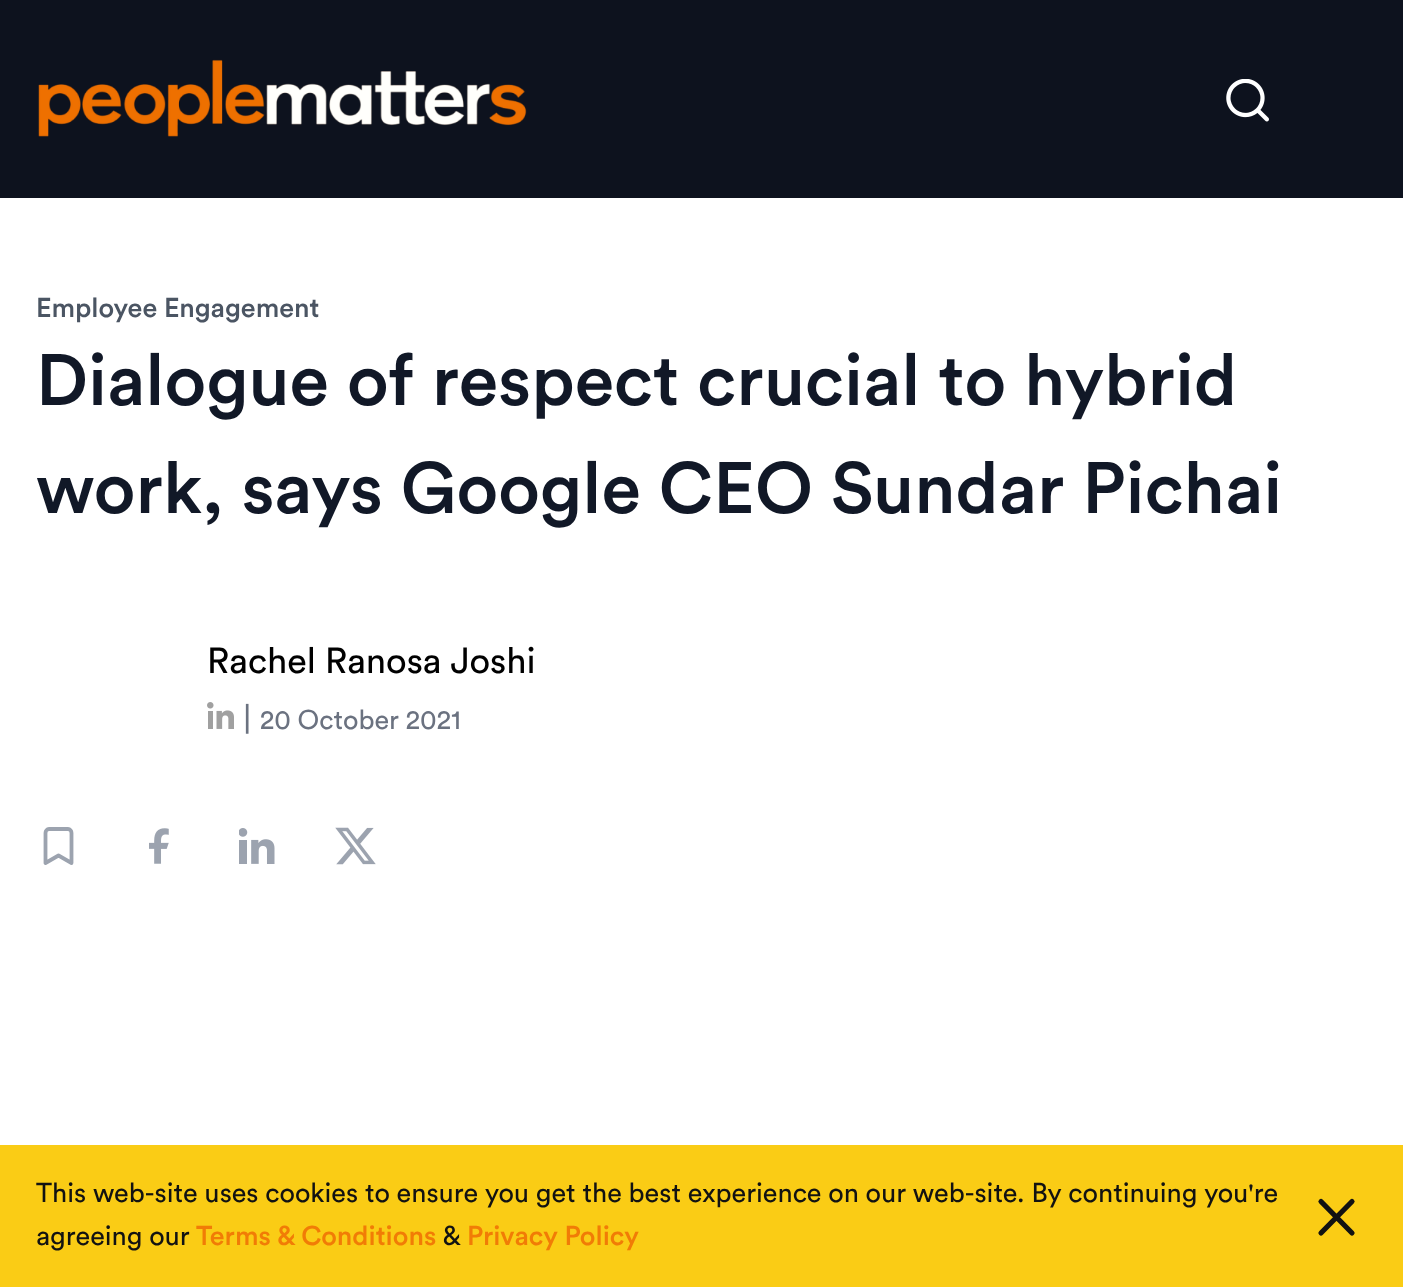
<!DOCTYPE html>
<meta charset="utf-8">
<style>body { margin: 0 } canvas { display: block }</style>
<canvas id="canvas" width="1403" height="1287"></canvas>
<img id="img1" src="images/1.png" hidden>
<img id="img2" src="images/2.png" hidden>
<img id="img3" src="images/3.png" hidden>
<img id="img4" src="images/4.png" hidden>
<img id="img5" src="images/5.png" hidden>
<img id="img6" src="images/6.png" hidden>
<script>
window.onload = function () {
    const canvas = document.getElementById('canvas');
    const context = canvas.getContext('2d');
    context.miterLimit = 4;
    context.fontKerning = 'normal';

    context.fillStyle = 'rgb(255, 255, 255)';
    context.fillRect(0, 0, 1403, 1287);
    context.fillStyle = 'rgb(13, 18, 30)';
    context.fillRect(0, 0, 1403, 198);
    context.drawImage(document.getElementById('img1'), 38, 59, 489, 78);
    context.drawImage(document.getElementById('img2'), 1226, 79, 43, 43);
    context.drawImage(document.getElementById('img3'), 207, 702, 27, 27);
    context.beginPath();
    context.moveTo(71.5, 863);
    context.lineTo(58.5, 855.5);
    context.lineTo(45.5, 863);
    context.lineTo(45.5, 833);
    context.bezierCurveTo(45.5, 831, 47, 829, 49, 829);
    context.lineTo(68, 829);
    context.bezierCurveTo(70, 829, 71.5, 831, 71.5, 833);
    context.closePath();
    context.strokeStyle = 'rgb(156, 163, 175)';
    context.lineWidth = 3.8;
    context.lineCap = 'round';
    context.lineJoin = 'round';
    context.stroke();
    context.drawImage(document.getElementById('img4'), 149, 828, 20, 36);
    context.drawImage(document.getElementById('img5'), 239, 828, 36, 36);
    context.drawImage(document.getElementById('img6'), 335, 827, 41, 38);
    context.fillStyle = 'rgb(250, 204, 21)';
    context.fillRect(0, 1145, 1403, 142);
    context.beginPath();
    context.moveTo(1352, 1201.5);
    context.lineTo(1321, 1233);
    context.moveTo(1321, 1201.5);
    context.lineTo(1352, 1233);
    context.strokeStyle = 'rgb(18, 18, 18)';
    context.lineWidth = 5.2;
    context.stroke();
    context.font = '500 27px Circular';
    context.fillStyle = 'rgb(75, 85, 99)';
    context.fillText('Employee Engagement', 36, 317);
    context.font = '500 72px Circular';
    context.fillStyle = 'rgb(17, 24, 39)';
    context.fillText('Dialogue of respect crucial to hybrid', 36, 405);
    context.fillText('work, says Google CEO Sundar Pichai', 36, 513);
    context.font = '36px Circular';
    context.fillStyle = 'rgb(0, 0, 0)';
    context.fillText('Rachel Ranosa Joshi', 207, 673);
    context.font = '32px Circular';
    context.fillStyle = 'rgb(107, 114, 128)';
    context.fillText('|', 243, 729);
    context.font = '27px Circular';
    context.fillText('20 October 2021', 260, 729);
    context.fillStyle = 'rgb(18, 18, 18)';
    context.fillText('This web-site uses cookies to ensure you get the best experience on our web-site. By continuing you\'re', 36, 1202);
    context.fillText('agreeing our', 36, 1245);
    context.font = '500 27px Circular';
    context.fillStyle = 'rgb(241, 124, 6)';
    context.fillText('Terms & Conditions', 196, 1245);
    context.font = '27px Circular';
    context.fillStyle = 'rgb(18, 18, 18)';
    context.fillText('&', 442, 1245);
    context.font = '500 27px Circular';
    context.fillStyle = 'rgb(241, 124, 6)';
    context.fillText('Privacy Policy', 467, 1245);
};
</script>
